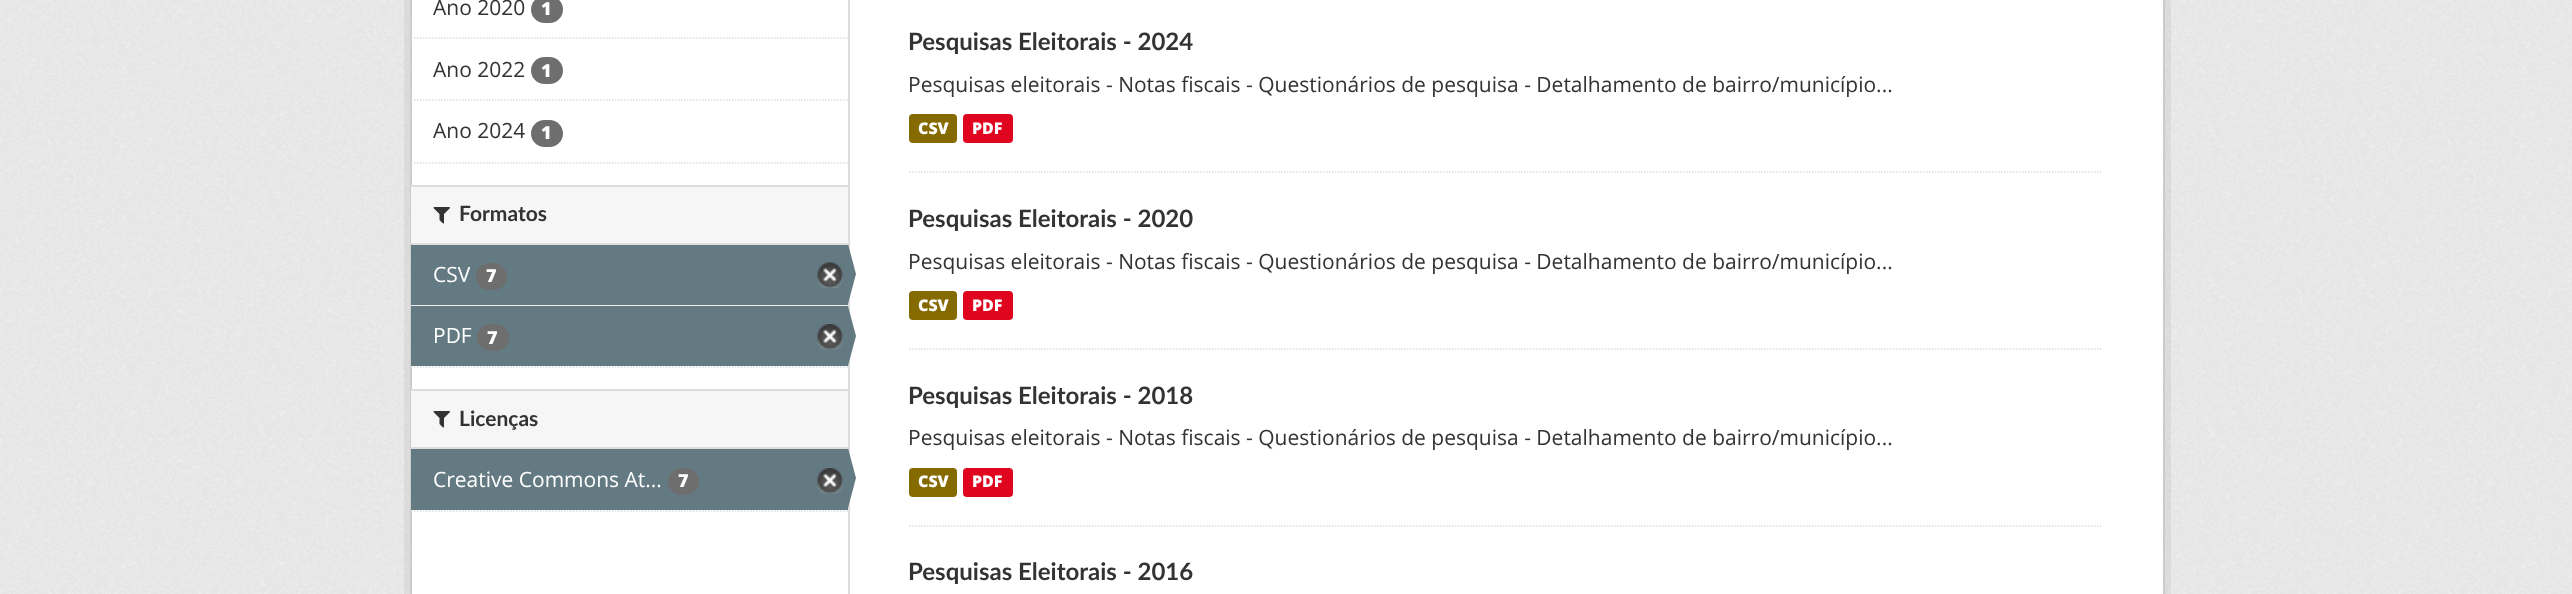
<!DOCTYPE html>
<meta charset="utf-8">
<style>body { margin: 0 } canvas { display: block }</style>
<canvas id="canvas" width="2572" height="594"></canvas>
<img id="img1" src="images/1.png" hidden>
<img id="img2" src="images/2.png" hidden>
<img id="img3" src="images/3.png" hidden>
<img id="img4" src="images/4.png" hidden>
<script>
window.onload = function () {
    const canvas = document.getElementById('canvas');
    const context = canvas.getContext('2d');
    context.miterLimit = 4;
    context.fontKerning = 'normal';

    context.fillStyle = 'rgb(238, 238, 238)';
    context.fillRect(0, 0, 2572, 594);
    context.drawImage(document.getElementById('img1'), 0, 0, 2572, 594);
    context.strokeStyle = 'rgba(0, 0, 0, 0.05)';
    context.lineWidth = 6;
    context.strokeRect(407, -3, 1761, 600);
    context.fillStyle = 'rgb(255, 255, 255)';
    context.beginPath();
    context.rect(411, -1, 1753, 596);
    context.fill();
    context.strokeStyle = 'rgb(204, 204, 204)';
    context.lineWidth = 2;
    context.stroke();
    context.beginPath();
    context.moveTo(411, 38);
    context.lineTo(847.5, 38);
    context.strokeStyle = 'rgb(221, 221, 221)';
    context.lineWidth = 1.5;
    context.setLineDash([1.5, 1.5]);
    context.stroke();
    context.fillStyle = 'rgb(110, 110, 110)';
    context.beginPath();
    context.roundRect(531, -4, 32, 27, 13.5);
    context.fill();
    context.beginPath();
    context.moveTo(411, 100);
    context.lineTo(847.5, 100);
    context.stroke();
    context.beginPath();
    context.roundRect(531, 57, 32, 27, 13.5);
    context.fill();
    context.beginPath();
    context.roundRect(531, 120, 32, 27, 13.5);
    context.fill();
    context.beginPath();
    context.moveTo(411, 163);
    context.lineTo(847.5, 163);
    context.stroke();
    context.fillStyle = 'rgb(246, 246, 246)';
    context.fillRect(411, 187, 437, 56);
    context.fillStyle = 'rgb(221, 221, 221)';
    context.fillRect(411, 185, 437, 2);
    context.fillRect(411, 243, 437, 2);
    context.drawImage(document.getElementById('img2'), 433, 207, 17, 17);
    context.fillStyle = 'rgb(246, 246, 246)';
    context.fillRect(411, 305, 437, 1);
    context.beginPath();
    context.moveTo(411, 305);
    context.lineTo(847.5, 305);
    context.stroke();
    context.fillStyle = 'rgb(100, 122, 130)';
    context.fillRect(411, 245, 437, 60);
    context.fillStyle = 'rgb(110, 110, 110)';
    context.beginPath();
    context.roundRect(476, 263, 31, 27, 13.5);
    context.fill();
    context.drawImage(document.getElementById('img3'), 817, 262, 26, 26);
    context.fillStyle = 'rgb(221, 221, 221)';
    context.fillRect(848, 0, 2, 594);
    context.fillStyle = 'rgb(100, 122, 130)';
    context.beginPath();
    context.moveTo(848, 304);
    context.lineTo(848, 244);
    context.lineTo(856, 274);
    context.closePath();
    context.fill();
    context.fillRect(411, 306, 437, 60);
    context.fillStyle = 'rgb(110, 110, 110)';
    context.beginPath();
    context.roundRect(477, 324, 32, 27, 13.5);
    context.fill();
    context.drawImage(document.getElementById('img4'), 817, 324, 26, 26);
    context.fillStyle = 'rgb(100, 122, 130)';
    context.beginPath();
    context.moveTo(848, 366);
    context.lineTo(848, 306);
    context.lineTo(856, 336);
    context.closePath();
    context.fill();
    context.beginPath();
    context.moveTo(411, 367);
    context.lineTo(847.5, 367);
    context.stroke();
    context.fillStyle = 'rgb(246, 246, 246)';
    context.fillRect(411, 391, 437, 56);
    context.fillStyle = 'rgb(221, 221, 221)';
    context.fillRect(411, 389, 437, 2);
    context.fillRect(411, 447, 437, 2);
    context.drawImage(document.getElementById('img2'), 433, 411, 17, 17);
    context.fillStyle = 'rgb(100, 122, 130)';
    context.fillRect(411, 449, 437, 61);
    context.fillStyle = 'rgb(110, 110, 110)';
    context.beginPath();
    context.roundRect(668, 468, 31, 27, 13.5);
    context.fill();
    context.drawImage(document.getElementById('img4'), 817, 468, 26, 26);
    context.fillStyle = 'rgb(100, 122, 130)';
    context.beginPath();
    context.moveTo(848, 508);
    context.lineTo(848, 448);
    context.lineTo(856, 478);
    context.closePath();
    context.fill();
    context.beginPath();
    context.moveTo(411, 511);
    context.lineTo(847.5, 511);
    context.stroke();
    context.beginPath();
    context.moveTo(909, 172);
    context.lineTo(2103, 172);
    context.stroke();
    context.fillStyle = 'rgb(133, 106, 0)';
    context.beginPath();
    context.roundRect(909, 114, 48, 29, 4);
    context.fill();
    context.fillStyle = 'rgb(224, 5, 30)';
    context.beginPath();
    context.roundRect(963, 114, 50, 29, 4);
    context.fill();
    context.beginPath();
    context.moveTo(909, 349);
    context.lineTo(2103, 349);
    context.stroke();
    context.fillStyle = 'rgb(133, 106, 0)';
    context.beginPath();
    context.roundRect(909, 291, 48, 29, 4);
    context.fill();
    context.fillStyle = 'rgb(224, 5, 30)';
    context.beginPath();
    context.roundRect(963, 291, 50, 29, 4);
    context.fill();
    context.beginPath();
    context.moveTo(909, 526);
    context.lineTo(2103, 526);
    context.stroke();
    context.fillStyle = 'rgb(133, 106, 0)';
    context.beginPath();
    context.roundRect(909, 468, 48, 29, 4);
    context.fill();
    context.fillStyle = 'rgb(224, 5, 30)';
    context.beginPath();
    context.roundRect(963, 468, 50, 29, 4);
    context.fill();
    context.font = '21px Open Sans';
    context.fillStyle = 'rgb(51, 51, 51)';
    context.fillText('Ano 2020', 433, 15);
    context.font = '800 18px Open Sans';
    context.fillStyle = 'rgb(255, 255, 255)';
    context.fillText('1', 541, 15);
    context.font = '21px Open Sans';
    context.fillStyle = 'rgb(51, 51, 51)';
    context.fillText('Ano 2022', 433, 77);
    context.font = '800 18px Open Sans';
    context.fillStyle = 'rgb(255, 255, 255)';
    context.fillText('1', 541, 77);
    context.font = '21px Open Sans';
    context.fillStyle = 'rgb(51, 51, 51)';
    context.fillText('Ano 2024', 433, 138);
    context.font = '800 18px Open Sans';
    context.fillStyle = 'rgb(255, 255, 255)';
    context.fillText('1', 541, 139);
    context.font = 'bold 21px Lato';
    context.fillStyle = 'rgb(51, 51, 51)';
    context.fillText('Formatos', 459, 221);
    context.font = '21px Open Sans';
    context.fillStyle = 'rgb(255, 255, 255)';
    context.fillText('CSV', 433, 282);
    context.font = '800 18px Open Sans';
    context.fillText('7', 486, 282);
    context.font = '21px Open Sans';
    context.fillText('PDF', 433, 343);
    context.font = '800 18px Open Sans';
    context.fillText('7', 487, 344);
    context.font = 'bold 21px Lato';
    context.fillStyle = 'rgb(51, 51, 51)';
    context.fillText('Licenças', 459, 426);
    context.font = '21px Open Sans';
    context.fillStyle = 'rgb(255, 255, 255)';
    context.fillText('Creative Commons At...', 433, 487);
    context.font = '800 18px Open Sans';
    context.fillText('7', 678, 487);
    context.font = 'bold 24px Lato';
    context.fillStyle = 'rgb(51, 51, 51)';
    context.fillText('Pesquisas Eleitorais - 2024', 908, 50);
    context.font = '21px Open Sans';
    context.fillText('Pesquisas eleitorais - Notas fiscais - Questionários de pesquisa - Detalhamento de bairro/município...', 908, 92);
    context.font = '800 16px Open Sans';
    context.fillStyle = 'rgb(255, 255, 255)';
    context.fillText('CSV', 918, 134);
    context.fillText('PDF', 972, 134);
    context.font = 'bold 24px Lato';
    context.fillStyle = 'rgb(51, 51, 51)';
    context.fillText('Pesquisas Eleitorais - 2020', 908, 227);
    context.font = '21px Open Sans';
    context.fillText('Pesquisas eleitorais - Notas fiscais - Questionários de pesquisa - Detalhamento de bairro/município...', 908, 269);
    context.font = '800 16px Open Sans';
    context.fillStyle = 'rgb(255, 255, 255)';
    context.fillText('CSV', 918, 311);
    context.fillText('PDF', 972, 311);
    context.font = 'bold 24px Lato';
    context.fillStyle = 'rgb(51, 51, 51)';
    context.fillText('Pesquisas Eleitorais - 2018', 908, 404);
    context.font = '21px Open Sans';
    context.fillText('Pesquisas eleitorais - Notas fiscais - Questionários de pesquisa - Detalhamento de bairro/município...', 908, 445);
    context.font = '800 16px Open Sans';
    context.fillStyle = 'rgb(255, 255, 255)';
    context.fillText('CSV', 918, 487);
    context.fillText('PDF', 972, 487);
    context.font = 'bold 24px Lato';
    context.fillStyle = 'rgb(51, 51, 51)';
    context.fillText('Pesquisas Eleitorais - 2016', 908, 580);
};
</script>
